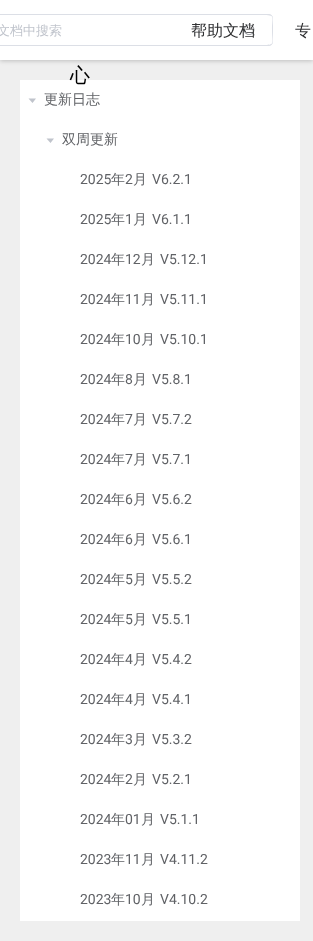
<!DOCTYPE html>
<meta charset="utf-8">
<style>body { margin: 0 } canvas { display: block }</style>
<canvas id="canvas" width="313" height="941"></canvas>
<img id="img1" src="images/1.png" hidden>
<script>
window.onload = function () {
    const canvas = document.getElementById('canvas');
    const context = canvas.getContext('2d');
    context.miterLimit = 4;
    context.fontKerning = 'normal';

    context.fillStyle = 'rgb(239, 239, 239)';
    context.fillRect(0, 0, 313, 941);
    context.fillStyle = 'rgba(0, 0, 0, 0.2)';
    context.filter = 'blur(2px)';
    context.beginPath();
    context.rect(0, 1, 313, 60);
    context.fill();
    context.filter = 'none';
    context.fillStyle = 'rgb(255, 255, 255)';
    context.fillRect(0, 0, 313, 60);
    context.fillStyle = 'rgb(220, 223, 230)';
    context.beginPath();
    context.moveTo(-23, 14);
    context.lineTo(227, 14);
    context.lineTo(227, 46);
    context.lineTo(-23, 46);
    context.bezierCurveTo(-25, 46, -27, 44, -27, 42);
    context.lineTo(-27, 18);
    context.bezierCurveTo(-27, 16, -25, 14, -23, 14);
    context.closePath();
    context.moveTo(-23, 15);
    context.lineTo(227, 15);
    context.lineTo(227, 45);
    context.lineTo(-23, 45);
    context.bezierCurveTo(-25, 45, -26, 44, -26, 42);
    context.lineTo(-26, 18);
    context.bezierCurveTo(-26, 16, -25, 15, -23, 15);
    context.closePath();
    context.fill('evenodd');
    context.beginPath();
    context.moveTo(227, 14);
    context.lineTo(269, 14);
    context.bezierCurveTo(271, 14, 273, 16, 273, 18);
    context.lineTo(273, 42);
    context.bezierCurveTo(273, 44, 271, 46, 269, 46);
    context.lineTo(227, 46);
    context.closePath();
    context.moveTo(227, 15);
    context.lineTo(262, 15);
    context.bezierCurveTo(276, 15, 272, 16, 272, 30);
    context.bezierCurveTo(272, 44, 276, 45, 262, 45);
    context.lineTo(227, 45);
    context.closePath();
    context.fill('evenodd');
    context.drawImage(document.getElementById('img1'), 243, 24, 12, 12);
    context.fillStyle = 'rgb(255, 255, 255)';
    context.fillRect(20, 80, 280, 841);
    context.font = '500 13px WenQuanYi Zen Hei';
    context.fillStyle = 'rgb(192, 196, 204)';
    context.fillText('文档中搜索', -3, 35);
    context.font = '500 16px WenQuanYi Zen Hei';
    context.fillStyle = 'rgb(48, 49, 51)';
    context.fillText('帮助文档', 191, 36);
    context.fillText('专', 295, 36);
    context.font = '500 20px WenQuanYi Zen Hei';
    context.fillStyle = 'rgb(0, 0, 0)';
    context.fillText('心', 70, 82);
    context.font = '500 14px WenQuanYi Zen Hei';
    context.fillStyle = 'rgb(96, 98, 102)';
    context.fillText('更新日志', 44, 104);
    context.fillStyle = 'rgb(192, 196, 204)';
    context.beginPath();
    context.moveTo(36, 98.5);
    context.lineTo(28.5, 98.5);
    context.lineTo(32.5, 103);
    context.closePath();
    context.moveTo(54, 138.5);
    context.lineTo(46.5, 138.5);
    context.lineTo(50.5, 143);
    context.closePath();
    context.fill();
    context.fillStyle = 'rgb(96, 98, 102)';
    context.fillText('双周更新', 62, 144);
    context.font = '14px Roboto';
    context.fillText('2025', 80, 184);
    context.font = '500 14px WenQuanYi Zen Hei';
    context.fillText('年', 111, 184);
    context.font = '14px Roboto';
    context.fillText('2', 125, 184);
    context.font = '500 14px WenQuanYi Zen Hei';
    context.fillText('月', 133, 184);
    context.font = '14px Roboto';
    context.fillText('V6.2.1', 152, 184);
    context.fillText('2025', 80, 224);
    context.font = '500 14px WenQuanYi Zen Hei';
    context.fillText('年', 111, 224);
    context.font = '14px Roboto';
    context.fillText('1', 125, 224);
    context.font = '500 14px WenQuanYi Zen Hei';
    context.fillText('月', 133, 224);
    context.font = '14px Roboto';
    context.fillText('V6.1.1', 152, 224);
    context.fillText('2024', 80, 264);
    context.font = '500 14px WenQuanYi Zen Hei';
    context.fillText('年', 111, 264);
    context.font = '14px Roboto';
    context.fillText('12', 125, 264);
    context.font = '500 14px WenQuanYi Zen Hei';
    context.fillText('月', 141, 264);
    context.font = '14px Roboto';
    context.fillText('V5.12.1', 160, 264);
    context.fillText('2024', 80, 304);
    context.font = '500 14px WenQuanYi Zen Hei';
    context.fillText('年', 111, 304);
    context.font = '14px Roboto';
    context.fillText('11', 125, 304);
    context.font = '500 14px WenQuanYi Zen Hei';
    context.fillText('月', 141, 304);
    context.font = '14px Roboto';
    context.fillText('V5.11.1', 160, 304);
    context.fillText('2024', 80, 344);
    context.font = '500 14px WenQuanYi Zen Hei';
    context.fillText('年', 111, 344);
    context.font = '14px Roboto';
    context.fillText('10', 125, 344);
    context.font = '500 14px WenQuanYi Zen Hei';
    context.fillText('月', 141, 344);
    context.font = '14px Roboto';
    context.fillText('V5.10.1', 160, 344);
    context.fillText('2024', 80, 384);
    context.font = '500 14px WenQuanYi Zen Hei';
    context.fillText('年', 111, 384);
    context.font = '14px Roboto';
    context.fillText('8', 125, 384);
    context.font = '500 14px WenQuanYi Zen Hei';
    context.fillText('月', 133, 384);
    context.font = '14px Roboto';
    context.fillText('V5.8.1', 152, 384);
    context.fillText('2024', 80, 424);
    context.font = '500 14px WenQuanYi Zen Hei';
    context.fillText('年', 111, 424);
    context.font = '14px Roboto';
    context.fillText('7', 125, 424);
    context.font = '500 14px WenQuanYi Zen Hei';
    context.fillText('月', 133, 424);
    context.font = '14px Roboto';
    context.fillText('V5.7.2', 152, 424);
    context.fillText('2024', 80, 464);
    context.font = '500 14px WenQuanYi Zen Hei';
    context.fillText('年', 111, 464);
    context.font = '14px Roboto';
    context.fillText('7', 125, 464);
    context.font = '500 14px WenQuanYi Zen Hei';
    context.fillText('月', 133, 464);
    context.font = '14px Roboto';
    context.fillText('V5.7.1', 152, 464);
    context.fillText('2024', 80, 504);
    context.font = '500 14px WenQuanYi Zen Hei';
    context.fillText('年', 111, 504);
    context.font = '14px Roboto';
    context.fillText('6', 125, 504);
    context.font = '500 14px WenQuanYi Zen Hei';
    context.fillText('月', 133, 504);
    context.font = '14px Roboto';
    context.fillText('V5.6.2', 152, 504);
    context.fillText('2024', 80, 544);
    context.font = '500 14px WenQuanYi Zen Hei';
    context.fillText('年', 111, 544);
    context.font = '14px Roboto';
    context.fillText('6', 125, 544);
    context.font = '500 14px WenQuanYi Zen Hei';
    context.fillText('月', 133, 544);
    context.font = '14px Roboto';
    context.fillText('V5.6.1', 152, 544);
    context.fillText('2024', 80, 584);
    context.font = '500 14px WenQuanYi Zen Hei';
    context.fillText('年', 111, 584);
    context.font = '14px Roboto';
    context.fillText('5', 125, 584);
    context.font = '500 14px WenQuanYi Zen Hei';
    context.fillText('月', 133, 584);
    context.font = '14px Roboto';
    context.fillText('V5.5.2', 152, 584);
    context.fillText('2024', 80, 624);
    context.font = '500 14px WenQuanYi Zen Hei';
    context.fillText('年', 111, 624);
    context.font = '14px Roboto';
    context.fillText('5', 125, 624);
    context.font = '500 14px WenQuanYi Zen Hei';
    context.fillText('月', 133, 624);
    context.font = '14px Roboto';
    context.fillText('V5.5.1', 152, 624);
    context.fillText('2024', 80, 664);
    context.font = '500 14px WenQuanYi Zen Hei';
    context.fillText('年', 111, 664);
    context.font = '14px Roboto';
    context.fillText('4', 125, 664);
    context.font = '500 14px WenQuanYi Zen Hei';
    context.fillText('月', 133, 664);
    context.font = '14px Roboto';
    context.fillText('V5.4.2', 152, 664);
    context.fillText('2024', 80, 704);
    context.font = '500 14px WenQuanYi Zen Hei';
    context.fillText('年', 111, 704);
    context.font = '14px Roboto';
    context.fillText('4', 125, 704);
    context.font = '500 14px WenQuanYi Zen Hei';
    context.fillText('月', 133, 704);
    context.font = '14px Roboto';
    context.fillText('V5.4.1', 152, 704);
    context.fillText('2024', 80, 744);
    context.font = '500 14px WenQuanYi Zen Hei';
    context.fillText('年', 111, 744);
    context.font = '14px Roboto';
    context.fillText('3', 125, 744);
    context.font = '500 14px WenQuanYi Zen Hei';
    context.fillText('月', 133, 744);
    context.font = '14px Roboto';
    context.fillText('V5.3.2', 152, 744);
    context.fillText('2024', 80, 784);
    context.font = '500 14px WenQuanYi Zen Hei';
    context.fillText('年', 111, 784);
    context.font = '14px Roboto';
    context.fillText('2', 125, 784);
    context.font = '500 14px WenQuanYi Zen Hei';
    context.fillText('月', 133, 784);
    context.font = '14px Roboto';
    context.fillText('V5.2.1', 152, 784);
    context.fillText('2024', 80, 824);
    context.font = '500 14px WenQuanYi Zen Hei';
    context.fillText('年', 111, 824);
    context.font = '14px Roboto';
    context.fillText('01', 125, 824);
    context.font = '500 14px WenQuanYi Zen Hei';
    context.fillText('月', 141, 824);
    context.font = '14px Roboto';
    context.fillText('V5.1.1', 160, 824);
    context.fillText('2023', 80, 864);
    context.font = '500 14px WenQuanYi Zen Hei';
    context.fillText('年', 111, 864);
    context.font = '14px Roboto';
    context.fillText('11', 125, 864);
    context.font = '500 14px WenQuanYi Zen Hei';
    context.fillText('月', 141, 864);
    context.font = '14px Roboto';
    context.fillText('V4.11.2', 160, 864);
    context.fillText('2023', 80, 904);
    context.font = '500 14px WenQuanYi Zen Hei';
    context.fillText('年', 111, 904);
    context.font = '14px Roboto';
    context.fillText('10', 125, 904);
    context.font = '500 14px WenQuanYi Zen Hei';
    context.fillText('月', 141, 904);
    context.font = '14px Roboto';
    context.fillText('V4.10.2', 160, 904);
};
</script>
